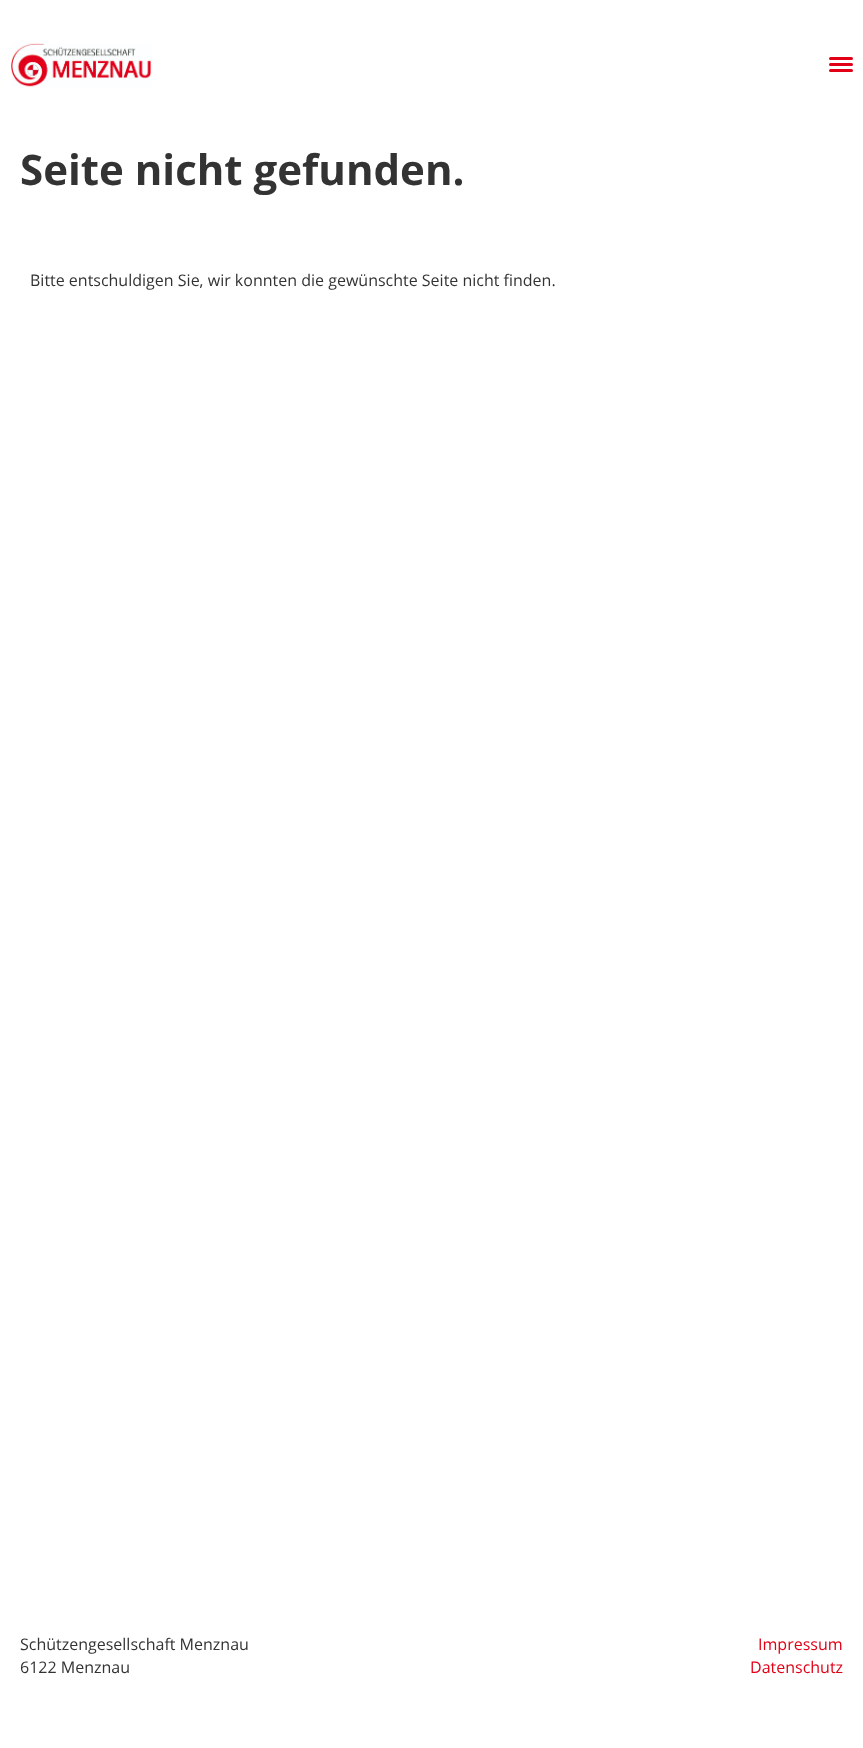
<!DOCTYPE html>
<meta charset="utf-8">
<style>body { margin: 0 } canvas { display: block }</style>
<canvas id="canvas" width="863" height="1748"></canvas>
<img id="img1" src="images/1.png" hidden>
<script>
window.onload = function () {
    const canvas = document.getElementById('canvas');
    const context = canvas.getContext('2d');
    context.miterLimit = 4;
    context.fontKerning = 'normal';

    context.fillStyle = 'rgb(255, 255, 255)';
    context.fillRect(0, 0, 863, 1748);
    context.drawImage(document.getElementById('img1'), 11, 43, 141, 44);
    context.fillStyle = 'rgb(225, 0, 22)';
    context.beginPath();
    context.roundRect(829, 57, 24, 3, 1.5);
    context.fill();
    context.beginPath();
    context.roundRect(829, 63, 24, 3, 1.5);
    context.fill();
    context.beginPath();
    context.roundRect(829, 69, 24, 3, 1.5);
    context.fill();
    context.font = 'bold 42px Open Sans';
    context.fillStyle = 'rgb(51, 51, 51)';
    context.fillText('Seite nicht gefunden.', 20, 185);
    context.font = '16px Open Sans';
    context.fillText('Bitte entschuldigen Sie, wir konnten die gewünschte Seite nicht finden.', 30, 286);
    context.fillText('Schützengesellschaft Menznau', 20, 1650);
    context.fillText('6122 Menznau', 20, 1673);
    context.fillStyle = 'rgb(225, 0, 22)';
    context.fillText('Impressum', 758, 1650);
    context.fillText('Datenschutz', 750, 1673);
};
</script>
